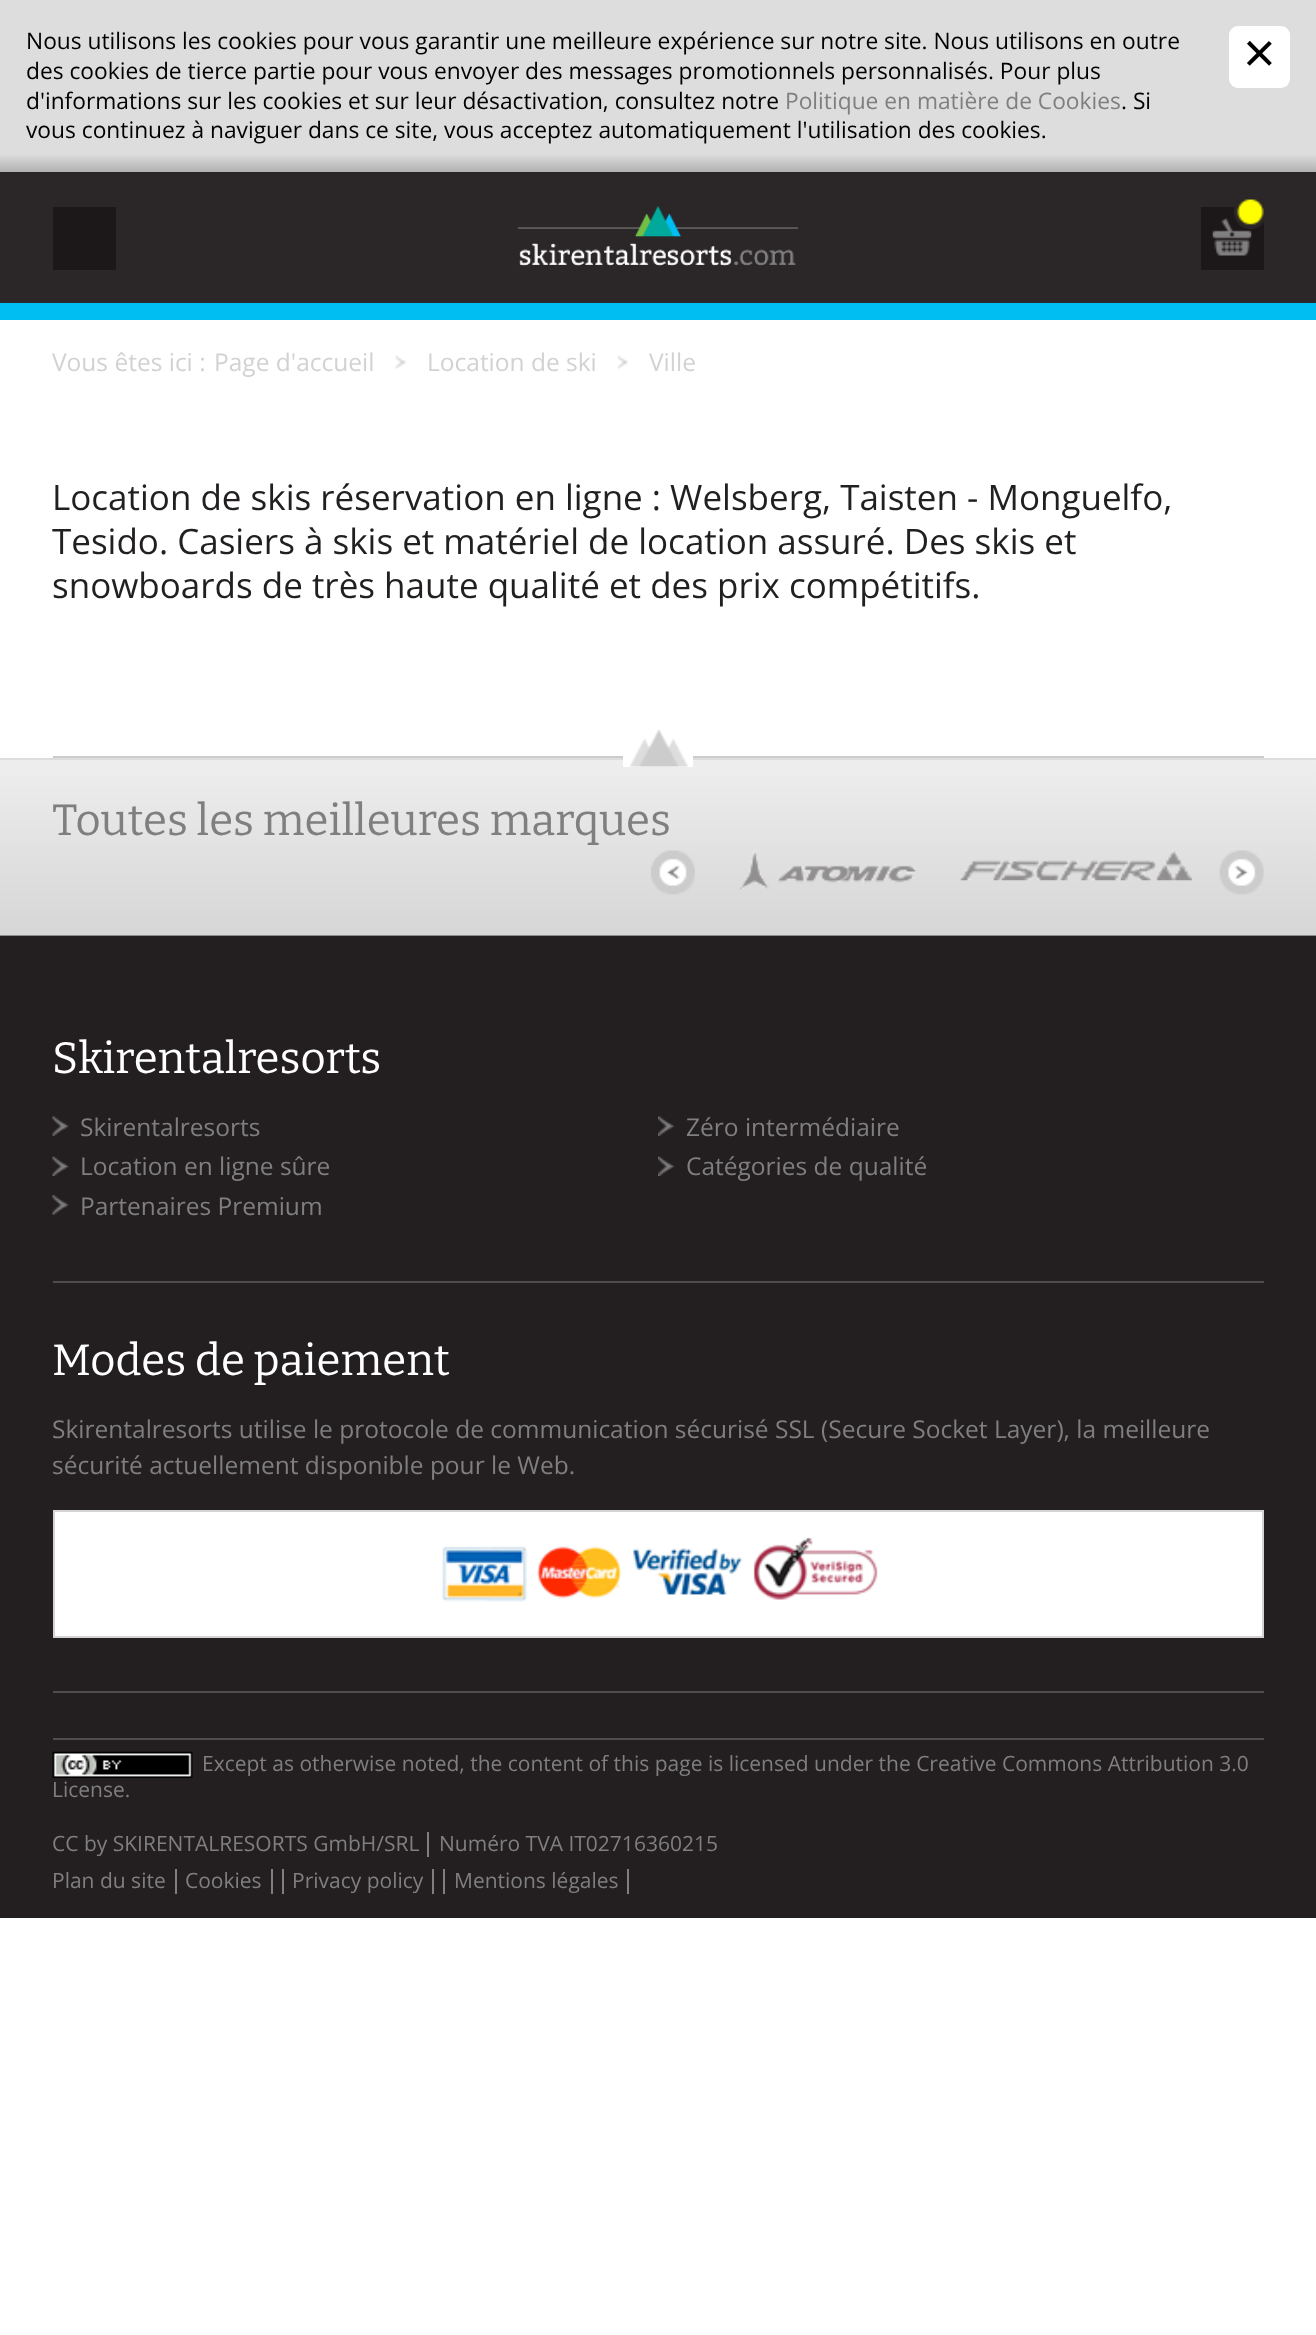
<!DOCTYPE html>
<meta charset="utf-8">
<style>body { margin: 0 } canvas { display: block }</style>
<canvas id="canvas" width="1316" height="2335"></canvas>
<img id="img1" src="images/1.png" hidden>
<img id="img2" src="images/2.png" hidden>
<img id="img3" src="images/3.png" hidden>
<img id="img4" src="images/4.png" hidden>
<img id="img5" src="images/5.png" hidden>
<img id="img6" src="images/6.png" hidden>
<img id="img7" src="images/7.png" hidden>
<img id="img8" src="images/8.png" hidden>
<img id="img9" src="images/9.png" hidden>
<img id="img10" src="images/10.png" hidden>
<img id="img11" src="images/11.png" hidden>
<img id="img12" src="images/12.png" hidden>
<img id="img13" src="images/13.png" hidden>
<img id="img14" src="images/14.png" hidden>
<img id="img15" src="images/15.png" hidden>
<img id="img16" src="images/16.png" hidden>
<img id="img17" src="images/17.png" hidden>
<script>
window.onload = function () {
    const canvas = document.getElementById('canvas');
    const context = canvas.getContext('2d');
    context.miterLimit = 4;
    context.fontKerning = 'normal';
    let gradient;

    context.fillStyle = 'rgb(255, 255, 255)';
    context.fillRect(0, 0, 1316, 2335);
    context.fillStyle = 'rgb(221, 221, 221)';
    context.fillRect(0, 0, 1316, 154);
    context.fillStyle = 'rgb(255, 255, 255)';
    context.beginPath();
    context.roundRect(1229, 26, 61, 62, 9);
    context.fill();
    gradient = context.createLinearGradient(658, 154, 658, 172);
    gradient.addColorStop(0, 'rgb(221, 221, 221)');
    gradient.addColorStop(1, 'rgb(177, 177, 177)');
    context.fillStyle = gradient;
    context.fillRect(0, 154, 1316, 18);
    context.fillStyle = 'rgb(43, 38, 39)';
    context.fillRect(0, 172, 1316, 131);
    context.fillStyle = 'rgb(0, 189, 242)';
    context.fillRect(0, 303, 1316, 17);
    context.fillStyle = 'rgb(28, 23, 24)';
    context.fillRect(53, 207, 63, 63);
    context.drawImage(document.getElementById('img1'), 518, 206, 280, 60);
    context.fillRect(1201, 207, 63, 63);
    context.drawImage(document.getElementById('img2'), 1212, 218, 40, 38);
    context.drawImage(document.getElementById('img3'), 1234, 199, 30, 30);
    context.drawImage(document.getElementById('img4'), 395, 355, 11, 14);
    context.drawImage(document.getElementById('img5'), 617, 355, 11, 14);
    context.fillStyle = 'rgb(204, 204, 204)';
    context.fillRect(53, 756, 1211, 2);
    gradient = context.createLinearGradient(658, 759, 658, 935);
    gradient.addColorStop(0, 'rgb(238, 238, 238)');
    gradient.addColorStop(1, 'rgb(214, 214, 214)');
    context.fillStyle = gradient;
    context.fillRect(0, 760, 1316, 175);
    context.fillStyle = 'rgb(221, 221, 221)';
    context.fillRect(0, 758, 1316, 2);
    context.fillStyle = 'rgb(255, 255, 255)';
    context.fillRect(623, 756, 70, 11);
    context.drawImage(document.getElementById('img6'), 630, 729, 58, 38);
    context.fillStyle = 'rgb(140, 138, 139)';
    context.fillRect(0, 935, 1316, 1);
    context.drawImage(document.getElementById('img7'), 651, 850, 44, 45);
    context.drawImage(document.getElementById('img8'), 740, 851, 176, 38);
    context.drawImage(document.getElementById('img9'), 960, 850, 232, 31);
    context.drawImage(document.getElementById('img10'), 1219, 850, 45, 45);
    context.fillStyle = 'rgb(35, 31, 32)';
    context.fillRect(0, 936, 1316, 982);
    context.fillStyle = 'rgb(77, 77, 77)';
    context.fillRect(53, 1281, 1211, 2);
    context.drawImage(document.getElementById('img11'), 52, 1116, 17, 20);
    context.drawImage(document.getElementById('img12'), 658, 1116, 16, 20);
    context.drawImage(document.getElementById('img13'), 52, 1156, 17, 20);
    context.drawImage(document.getElementById('img14'), 658, 1156, 16, 20);
    context.drawImage(document.getElementById('img15'), 52, 1195, 17, 20);
    context.fillRect(53, 1691, 1211, 2);
    context.fillStyle = 'rgb(255, 255, 255)';
    context.beginPath();
    context.rect(54, 1511, 1209, 126);
    context.fill();
    context.strokeStyle = 'rgb(212, 212, 212)';
    context.lineWidth = 2;
    context.stroke();
    context.drawImage(document.getElementById('img16'), 442, 1538, 436, 64);
    context.fillStyle = 'rgb(77, 77, 77)';
    context.fillRect(53, 1738, 1211, 2);
    context.drawImage(document.getElementById('img17'), 52, 1751, 141, 27);
    context.fillStyle = 'rgb(127, 127, 127)';
    context.fillRect(427, 1832, 2, 25);
    context.fillRect(271, 1869, 2, 25);
    context.fillRect(175, 1869, 2, 25);
    context.fillRect(432, 1869, 2, 25);
    context.fillRect(282, 1869, 2, 25);
    context.fillRect(627, 1869, 2, 25);
    context.fillRect(443, 1869, 2, 25);
    context.font = '22.75px Open Sans';
    context.fillStyle = 'rgb(0, 0, 0)';
    context.fillText('Nous utilisons les cookies pour vous garantir une meilleure expérience sur notre site. Nous utilisons en outre', 26, 49);
    context.fillText('des cookies de tierce partie pour vous envoyer des messages promotionnels personnalisés. Pour plus', 26, 79);
    context.fillText('d\'informations sur les cookies et sur leur désactivation, consultez notre', 26, 109);
    context.fillStyle = 'rgb(127, 127, 127)';
    context.fillText('Politique en matière de Cookies', 785, 109);
    context.fillStyle = 'rgb(0, 0, 0)';
    context.fillText('. Si', 1121, 109);
    context.fillText('vous continuez à naviguer dans ce site, vous acceptez automatiquement l\'utilisation des cookies.', 26, 138);
    context.font = '56px Liberation Sans';
    context.fillText('×', 1243, 72);
    context.font = '24.5px Open Sans';
    context.fillStyle = 'rgb(210, 210, 210)';
    context.fillText('Vous êtes ici :', 52, 371);
    context.fillText('Page d\'accueil', 214, 371);
    context.fillText('Location de ski', 427, 371);
    context.fillText('Ville', 649, 371);
    context.font = '35px Open Sans';
    context.fillStyle = 'rgb(33, 31, 31)';
    context.fillText('Location de skis réservation en ligne : Welsberg, Taisten - Monguelfo,', 52, 510);
    context.fillText('Tesido. Casiers à skis et matériel de location assuré. Des skis et', 52, 554);
    context.fillText('snowboards de très haute qualité et des prix compétitifs.', 52, 598);
    context.font = '100 43.75px Bitter';
    context.fillStyle = 'rgb(127, 127, 127)';
    context.fillText('Toutes les meilleures marques', 52, 835);
    context.fillStyle = 'rgb(255, 255, 255)';
    context.fillText('Skirentalresorts', 52, 1073);
    context.font = '24.5px Open Sans';
    context.fillStyle = 'rgb(127, 127, 127)';
    context.fillText('Skirentalresorts', 80, 1136);
    context.fillText('Zéro intermédiaire', 686, 1136);
    context.fillText('Location en ligne sûre', 80, 1175);
    context.fillText('Catégories de qualité', 686, 1175);
    context.fillText('Partenaires Premium', 80, 1215);
    context.font = '100 43.75px Bitter';
    context.fillStyle = 'rgb(255, 255, 255)';
    context.fillText('Modes de paiement', 52, 1375);
    context.font = '24.5px Open Sans';
    context.fillStyle = 'rgb(127, 127, 127)';
    context.fillText('Skirentalresorts utilise le protocole de communication sécurisé SSL (Secure Socket Layer), la meilleure', 52, 1438);
    context.fillText('sécurité actuellement disponible pour le Web.', 52, 1474);
    context.font = '21px Open Sans';
    context.fillText('Except as otherwise noted, the content of this page is licensed under the Creative Commons Attribution 3.0', 202, 1771);
    context.fillText('License.', 52, 1797);
    context.fillText('CC by SKIRENTALRESORTS GmbH/SRL', 52, 1851);
    context.fillText('Numéro TVA IT02716360215', 439, 1851);
    context.fillText('Plan du site', 52, 1888);
    context.fillText('Cookies', 185, 1888);
    context.fillText('Privacy policy', 292, 1888);
    context.fillText('Mentions légales', 454, 1888);
};
</script>
